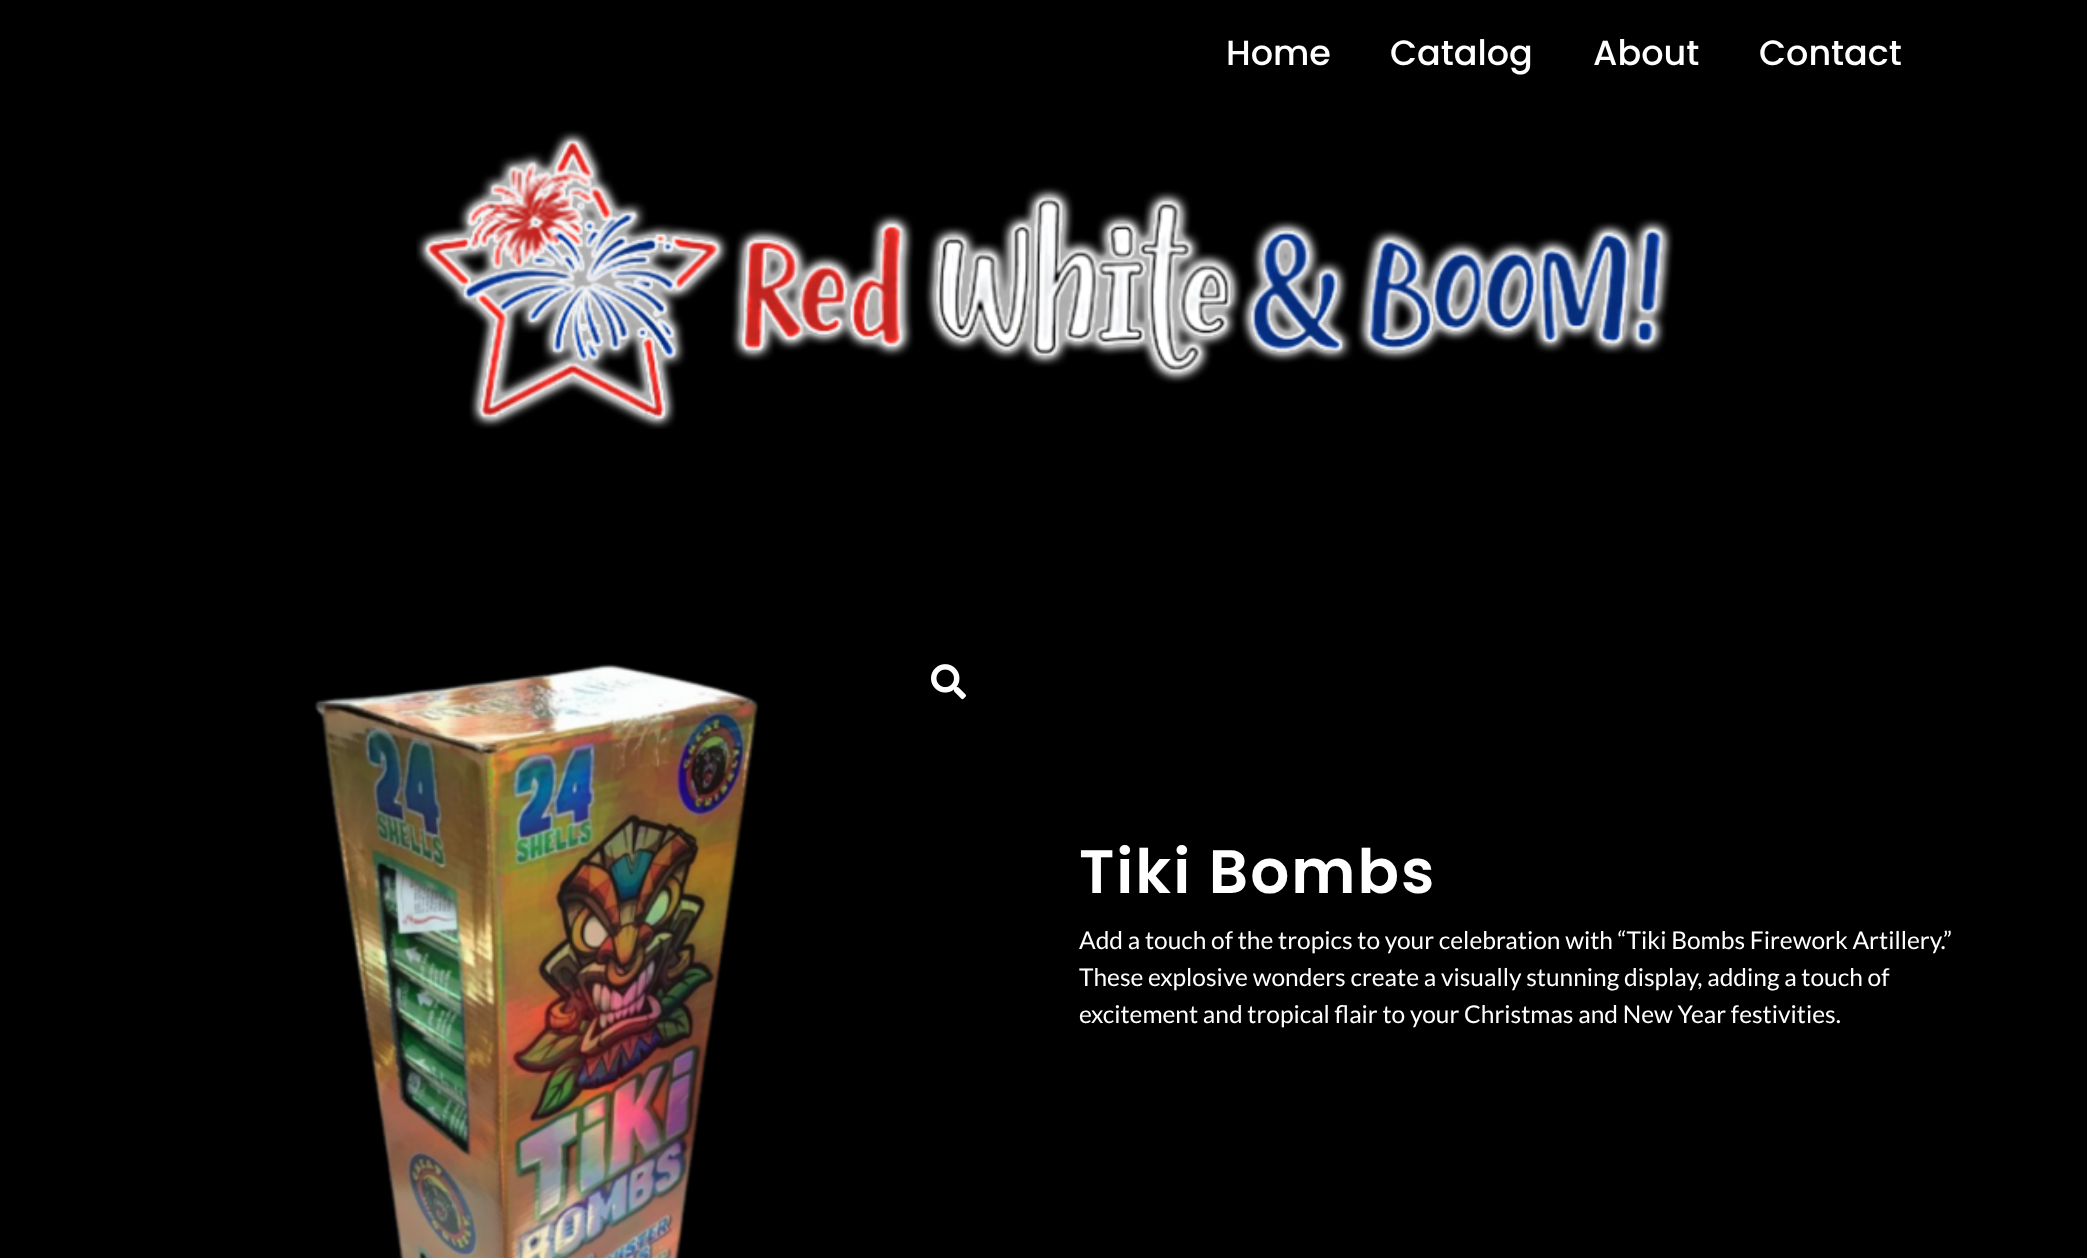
<!DOCTYPE html>
<meta charset="utf-8">
<style>body { margin: 0 } canvas { display: block }</style>
<canvas id="canvas" width="2087" height="1258"></canvas>
<img id="img1" src="images/1.png" hidden>
<img id="img2" src="images/2.png" hidden>
<img id="img3" src="images/3.png" hidden>
<script>
window.onload = function () {
    const canvas = document.getElementById('canvas');
    const context = canvas.getContext('2d');
    context.miterLimit = 4;
    context.fontKerning = 'normal';

    context.fillStyle = 'rgb(0, 0, 0)';
    context.fillRect(0, 0, 2087, 1258);
    context.drawImage(document.getElementById('img1'), 416, 130, 1258, 299);
    context.drawImage(document.getElementById('img2'), 314, 664, 445, 594);
    context.drawImage(document.getElementById('img3'), 931, 664, 35, 36);
    context.font = '500 35px Poppins';
    context.fillStyle = 'rgb(255, 255, 255)';
    context.fillText('Home', 1226, 65);
    context.fillText('Catalog', 1390, 65);
    context.fillText('About', 1593, 65);
    context.fillText('Contact', 1759, 65);
    context.letterSpacing = '2px';
    context.font = '600 61.25px Poppins';
    context.fillText('Tiki Bombs', 1079, 893);
    context.letterSpacing = '0px';
    context.font = '24.5px Lato';
    context.fillText('Add a touch of the tropics to your celebration with “Tiki Bombs Firework Artillery.”', 1079, 949);
    context.fillText('These explosive wonders create a visually stunning display, adding a touch of', 1079, 986);
    context.fillText('excitement and tropical flair to your Christmas and New Year festivities.', 1079, 1023);
};
</script>
